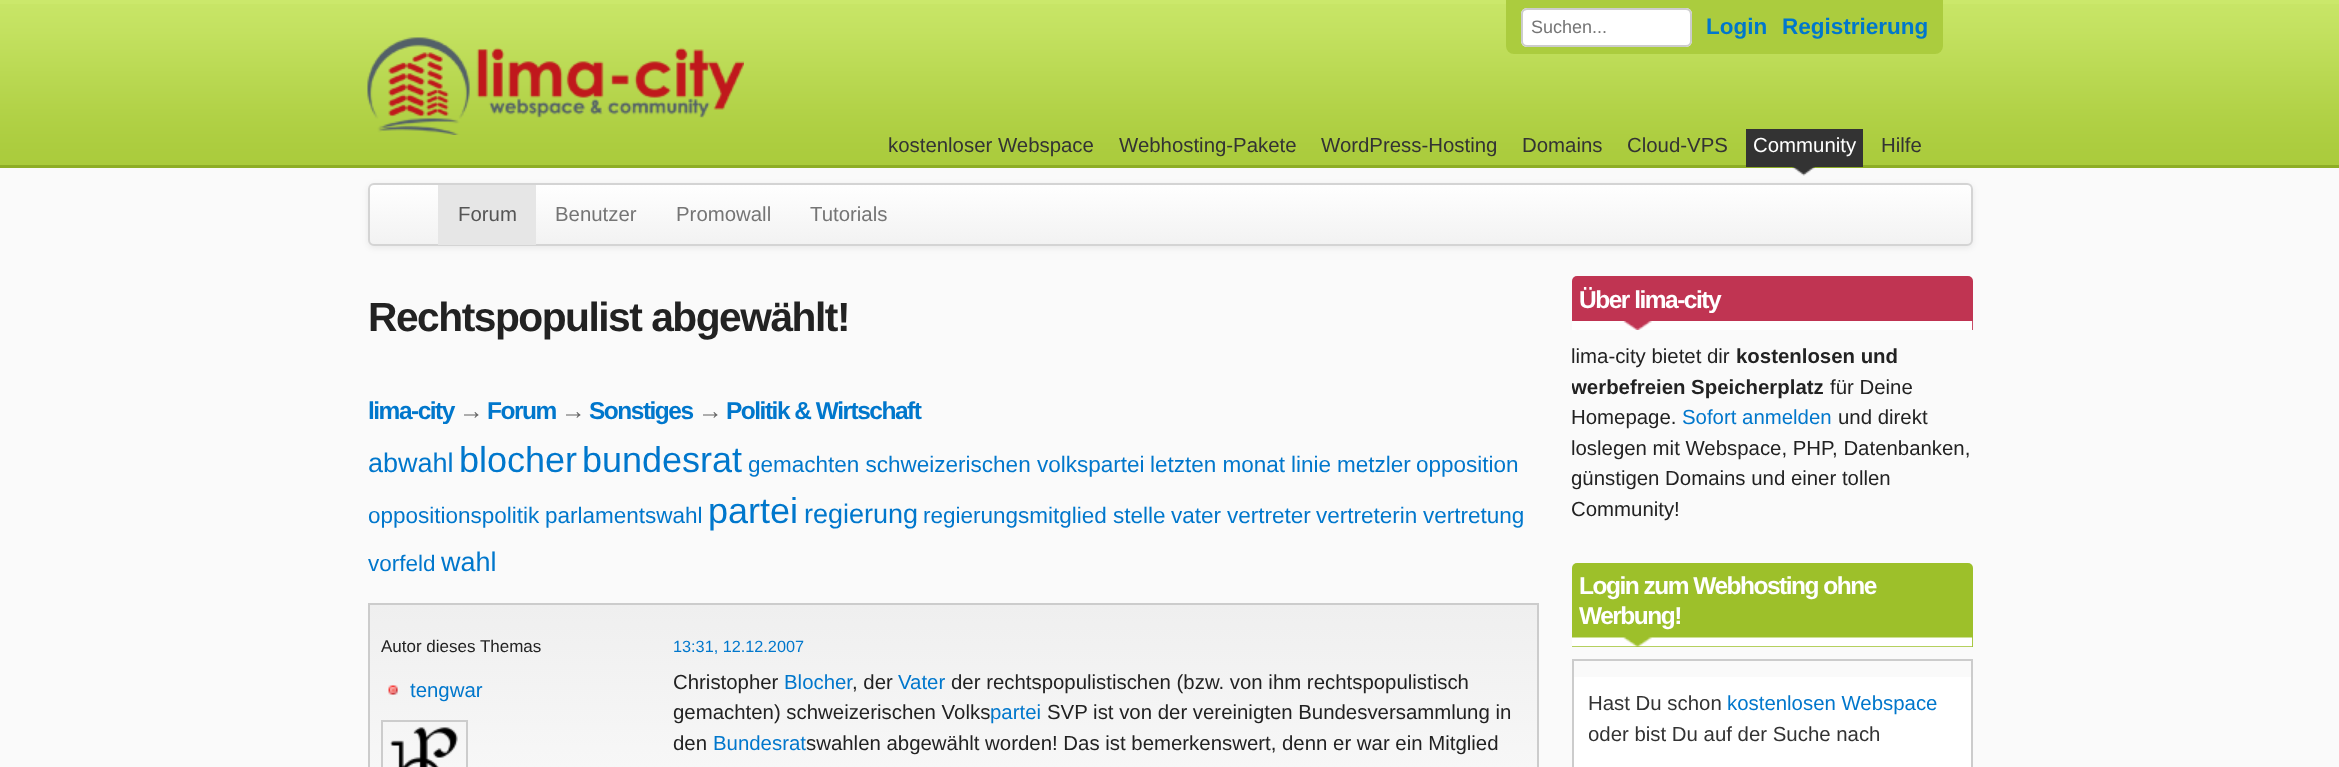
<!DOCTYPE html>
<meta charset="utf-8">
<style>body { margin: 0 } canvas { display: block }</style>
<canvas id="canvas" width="2339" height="767"></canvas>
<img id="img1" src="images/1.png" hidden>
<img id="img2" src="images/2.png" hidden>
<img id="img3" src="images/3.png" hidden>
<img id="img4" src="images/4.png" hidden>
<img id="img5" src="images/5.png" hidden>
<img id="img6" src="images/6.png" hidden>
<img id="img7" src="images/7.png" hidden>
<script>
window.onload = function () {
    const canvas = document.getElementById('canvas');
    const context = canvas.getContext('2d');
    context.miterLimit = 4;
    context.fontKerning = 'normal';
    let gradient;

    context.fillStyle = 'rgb(203, 232, 107)';
    context.fillRect(0, 0, 2339, 767);
    context.drawImage(document.getElementById('img1'), 0, 4, 2339, 161);
    context.fillStyle = 'rgb(141, 173, 37)';
    context.fillRect(0, 165, 2339, 3);
    context.fillStyle = 'rgb(171, 204, 62)';
    context.beginPath();
    context.roundRect(1506, 0, 437, 54, [0, 0, 8, 8]);
    context.fill();
    context.fillStyle = 'rgb(255, 255, 255)';
    context.beginPath();
    context.roundRect(1521, 8, 171, 39, 6);
    context.fill();
    context.fillStyle = 'rgb(236, 236, 236)';
    context.beginPath();
    context.moveTo(1527, 10);
    context.lineTo(1686, 10);
    context.bezierCurveTo(1692, 10, 1690, 22, 1690, 24);
    context.lineTo(1690, 43);
    context.bezierCurveTo(1691, 42, 1691, 41, 1691, 40);
    context.lineTo(1691, 14);
    context.bezierCurveTo(1691, 11, 1689, 9, 1686, 9);
    context.lineTo(1528, 9);
    context.bezierCurveTo(1526, 9, 1524, 10, 1523, 12);
    context.bezierCurveTo(1524, 11, 1526, 10, 1527, 10);
    context.closePath();
    context.fill();
    context.beginPath();
    context.roundRect(1522, 9, 169, 37, 5);
    context.strokeStyle = 'rgb(204, 204, 204)';
    context.lineWidth = 2;
    context.stroke();
    context.drawImage(document.getElementById('img2'), 367, 37, 377, 98);
    context.fillStyle = 'rgb(250, 250, 250)';
    context.fillRect(0, 168, 2339, 599);
    context.drawImage(document.getElementById('img3'), 1792, 167, 23, 9);
    context.fillStyle = 'rgb(51, 51, 51)';
    context.fillRect(1746, 129, 117, 38);
    context.fillStyle = 'rgba(0, 0, 0, 0.07)';
    context.filter = 'blur(3px)';
    context.beginPath();
    context.roundRect(368, 185, 1605, 63, 6);
    context.fill();
    context.filter = 'none';
    context.save();
    context.beginPath();
    context.roundRect(368, 183, 1605, 63, 6);
    context.clip();
    gradient = context.createLinearGradient(1170, 184, 1170, 245);
    gradient.addColorStop(0, 'rgb(255, 255, 255)');
    gradient.addColorStop(1, 'rgb(242, 242, 242)');
    context.fillStyle = gradient;
    context.fillRect(368, 185, 1605, 60);
    context.restore();
    context.beginPath();
    context.roundRect(369, 184, 1603, 61, 5);
    context.strokeStyle = 'rgb(212, 212, 212)';
    context.stroke();
    context.fillStyle = 'rgb(230, 230, 230)';
    context.fillRect(438, 185, 98, 60);
    gradient = context.createLinearGradient(953, 604, 953, 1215);
    gradient.addColorStop(0, 'rgb(239, 239, 239)');
    gradient.addColorStop(0.37, 'rgb(250, 250, 250)');
    context.fillStyle = gradient;
    context.fillRect(370, 605, 1167, 162);
    context.strokeStyle = 'rgb(204, 204, 204)';
    context.strokeRect(369, 604, 1169, 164);
    context.drawImage(document.getElementById('img4'), 388, 685, 10, 10);
    context.strokeRect(382, 721, 85, 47);
    context.drawImage(document.getElementById('img5'), 390, 727, 68, 40);
    context.fillStyle = 'rgb(192, 52, 82)';
    context.beginPath();
    context.roundRect(1572, 276, 401, 54, [5, 5, 0, 0]);
    context.fill();
    context.drawImage(document.getElementById('img6'), 1572, 321, 401, 9);
    context.fillStyle = 'rgb(157, 192, 42)';
    context.beginPath();
    context.roundRect(1572, 563, 401, 84, [5, 5, 0, 0]);
    context.fill();
    context.drawImage(document.getElementById('img7'), 1572, 637, 401, 10);
    context.fillStyle = 'rgb(255, 255, 255)';
    context.fillRect(1574, 677, 397, 90);
    context.strokeRect(1573, 660, 399, 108);
    context.font = '18px Liberation Sans';
    context.fillStyle = 'rgb(117, 117, 117)';
    context.fillText('Suchen...', 1531, 33);
    context.font = 'bold 22.5px Liberation Sans';
    context.fillStyle = 'rgb(0, 119, 204)';
    context.fillText('Login', 1706, 34);
    context.fillText('Registrierung', 1782, 34);
    context.font = '20.4px Liberation Sans';
    context.fillStyle = 'rgb(51, 51, 51)';
    context.fillText('kostenloser Webspace', 888, 152);
    context.fillText('Webhosting-Pakete', 1119, 152);
    context.fillText('WordPress-Hosting', 1321, 152);
    context.fillText('Domains', 1522, 152);
    context.fillText('Cloud-VPS', 1627, 152);
    context.fillStyle = 'rgb(255, 255, 255)';
    context.fillText('Community', 1753, 152);
    context.fillStyle = 'rgb(51, 51, 51)';
    context.fillText('Hilfe', 1881, 152);
    context.fillStyle = 'rgb(85, 85, 85)';
    context.fillText('Forum', 458, 221);
    context.fillStyle = 'rgb(117, 117, 117)';
    context.fillText('Benutzer', 555, 221);
    context.fillText('Promowall', 676, 221);
    context.fillText('Tutorials', 810, 221);
    context.letterSpacing = '-1.5px';
    context.font = 'bold 40.75px Liberation Sans';
    context.fillStyle = 'rgb(34, 34, 34)';
    context.fillText('Rechtspopulist abgewählt!', 368, 331);
    context.font = 'bold 24.5px Liberation Sans';
    context.fillStyle = 'rgb(0, 119, 204)';
    context.fillText('lima-city', 368, 419);
    context.fillStyle = 'rgb(102, 102, 102)';
    context.fillText('→', 459, 419);
    context.fillStyle = 'rgb(0, 119, 204)';
    context.fillText('Forum', 487, 419);
    context.fillStyle = 'rgb(102, 102, 102)';
    context.fillText('→', 561, 419);
    context.fillStyle = 'rgb(0, 119, 204)';
    context.fillText('Sonstiges', 589, 419);
    context.fillStyle = 'rgb(102, 102, 102)';
    context.fillText('→', 698, 419);
    context.fillStyle = 'rgb(0, 119, 204)';
    context.fillText('Politik & Wirtschaft', 726, 419);
    context.letterSpacing = '0px';
    context.font = '27px Liberation Sans';
    context.fillText('abwahl', 368, 472);
    context.font = '36px Liberation Sans';
    context.fillText('blocher', 459, 472);
    context.fillText('bundesrat', 582, 472);
    context.font = '22.5px Liberation Sans';
    context.fillText('gemachten schweizerischen volkspartei', 748, 472);
    context.fillText('letzten monat', 1150, 472);
    context.fillText('linie', 1291, 472);
    context.fillText('metzler', 1337, 472);
    context.fillText('opposition', 1416, 472);
    context.fillText('oppositionspolitik', 368, 523);
    context.fillText('parlamentswahl', 545, 523);
    context.font = '36px Liberation Sans';
    context.fillText('partei', 708, 523);
    context.font = '27px Liberation Sans';
    context.fillText('regierung', 804, 523);
    context.font = '22.5px Liberation Sans';
    context.fillText('regierungsmitglied', 923, 523);
    context.fillText('stelle', 1113, 523);
    context.fillText('vater', 1171, 523);
    context.fillText('vertreter', 1227, 523);
    context.fillText('vertreterin', 1316, 523);
    context.fillText('vertretung', 1423, 523);
    context.fillText('vorfeld', 368, 571);
    context.font = '27px Liberation Sans';
    context.fillText('wahl', 441, 571);
    context.font = '17px Liberation Sans';
    context.fillStyle = 'rgb(34, 34, 34)';
    context.fillText('Autor dieses Themas', 381, 652);
    context.font = '20.4px Liberation Sans';
    context.fillStyle = 'rgb(0, 119, 204)';
    context.fillText('tengwar', 410, 697);
    context.font = '16.25px Liberation Sans';
    context.fillText('13:31, 12.12.2007', 673, 652);
    context.font = '20.4px Liberation Sans';
    context.fillStyle = 'rgb(34, 34, 34)';
    context.fillText('Christopher', 673, 689);
    context.fillStyle = 'rgb(0, 119, 204)';
    context.fillText('Blocher', 784, 689);
    context.fillStyle = 'rgb(34, 34, 34)';
    context.fillText(', der', 852, 689);
    context.fillStyle = 'rgb(0, 119, 204)';
    context.fillText('Vater', 898, 689);
    context.fillStyle = 'rgb(34, 34, 34)';
    context.fillText('der rechtspopulistischen (bzw. von ihm rechtspopulistisch', 951, 689);
    context.fillText('gemachten) schweizerischen Volks', 673, 719);
    context.fillStyle = 'rgb(0, 119, 204)';
    context.fillText('partei', 990, 719);
    context.fillStyle = 'rgb(34, 34, 34)';
    context.fillText('SVP ist von der vereinigten Bundesversammlung in', 1047, 719);
    context.fillText('den', 673, 750);
    context.fillStyle = 'rgb(0, 119, 204)';
    context.fillText('Bundesrat', 713, 750);
    context.fillStyle = 'rgb(34, 34, 34)';
    context.fillText('swahlen abgewählt worden! Das ist bemerkenswert, denn er war ein Mitglied', 806, 750);
    context.letterSpacing = '-1.5px';
    context.font = 'bold 24.5px Liberation Sans';
    context.fillStyle = 'rgb(255, 255, 255)';
    context.fillText('Über lima-city', 1579, 308);
    context.letterSpacing = '0px';
    context.font = '20.4px Liberation Sans';
    context.fillStyle = 'rgb(34, 34, 34)';
    context.fillText('lima-city bietet dir', 1571, 363);
    context.font = 'bold 20.4px Liberation Sans';
    context.fillText('kostenlosen und', 1736, 363);
    context.save();
    context.beginPath();
    context.rect(1572, 276, 401, 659);
    context.clip();
    context.fillText('werbefreien Speicherplatz', 1571, 394);
    context.restore();
    context.font = '20.4px Liberation Sans';
    context.fillText('für Deine', 1830, 394);
    context.fillText('Homepage.', 1571, 424);
    context.fillStyle = 'rgb(0, 119, 204)';
    context.fillText('Sofort anmelden', 1682, 424);
    context.fillStyle = 'rgb(34, 34, 34)';
    context.fillText('und direkt', 1838, 424);
    context.fillText('loslegen mit Webspace, PHP, Datenbanken,', 1571, 455);
    context.fillText('günstigen Domains und einer tollen', 1571, 485);
    context.fillText('Community!', 1571, 516);
    context.letterSpacing = '-1.5px';
    context.font = 'bold 24.5px Liberation Sans';
    context.fillStyle = 'rgb(255, 255, 255)';
    context.fillText('Login zum Webhosting ohne', 1579, 594);
    context.fillText('Werbung!', 1579, 624);
    context.letterSpacing = '0px';
    context.font = '20.4px Liberation Sans';
    context.fillStyle = 'rgb(51, 51, 51)';
    context.fillText('Hast Du schon', 1588, 710);
    context.fillStyle = 'rgb(0, 119, 204)';
    context.fillText('kostenlosen Webspace', 1727, 710);
    context.save();
    context.beginPath();
    context.rect(1589, 686, 367, 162);
    context.clip();
    context.fillStyle = 'rgb(51, 51, 51)';
    context.fillText('oder bist Du auf der Suche nach', 1588, 741);
    context.restore();
};
</script>
